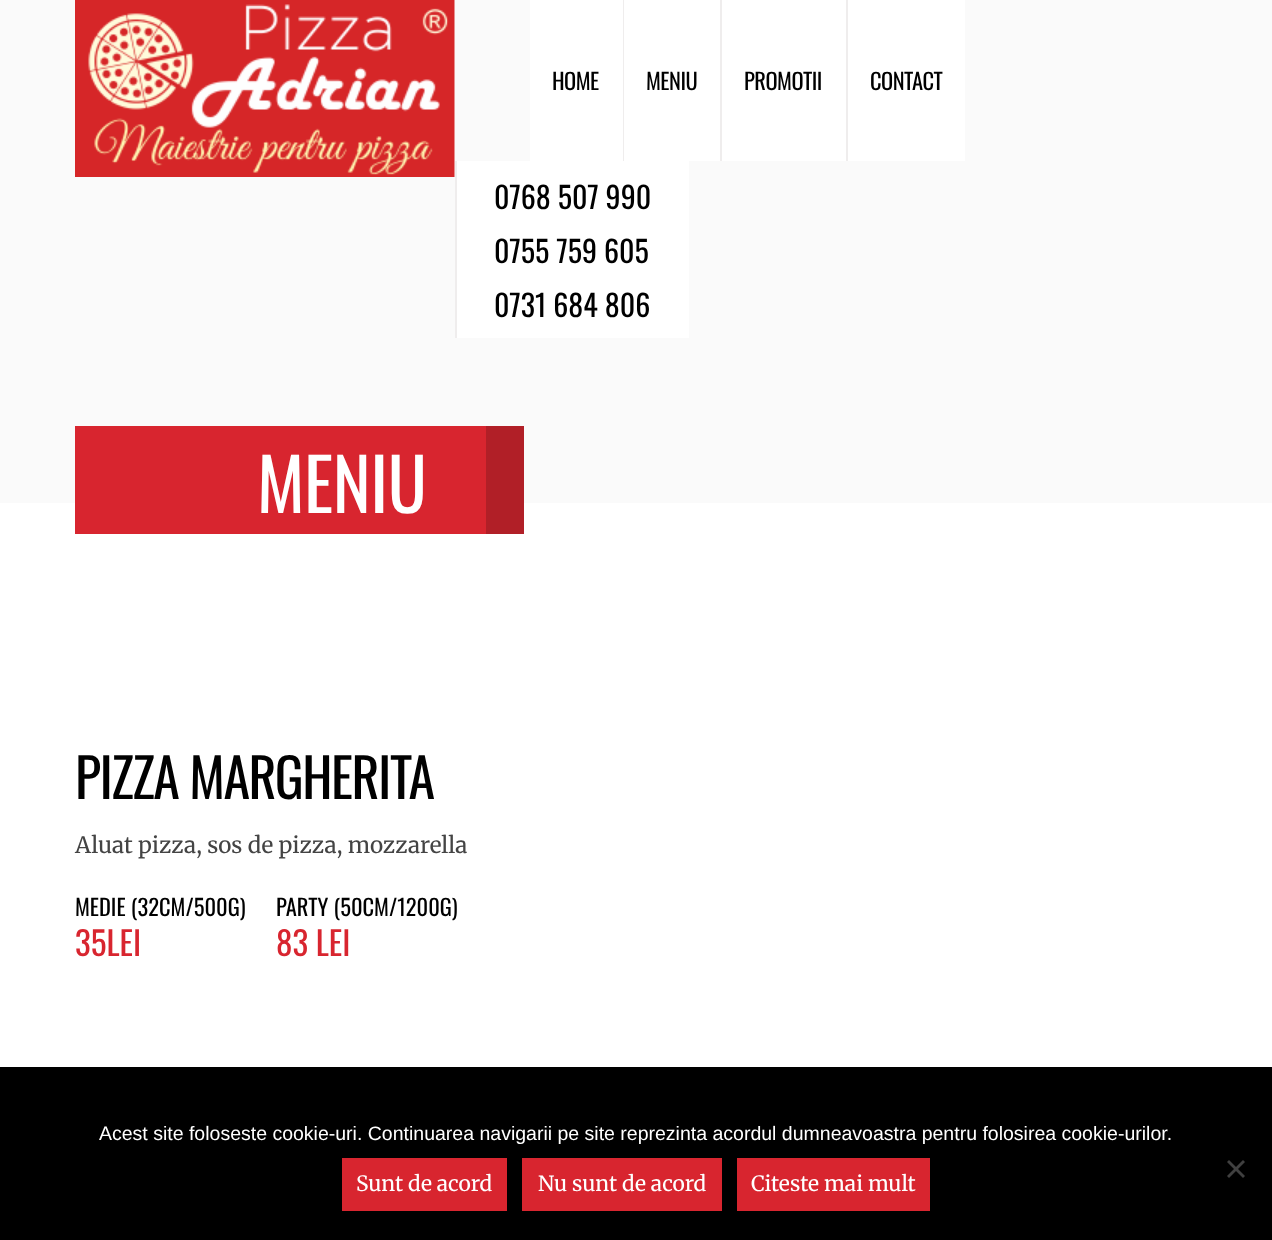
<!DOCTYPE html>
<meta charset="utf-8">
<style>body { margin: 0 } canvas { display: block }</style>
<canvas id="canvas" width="1272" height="1240"></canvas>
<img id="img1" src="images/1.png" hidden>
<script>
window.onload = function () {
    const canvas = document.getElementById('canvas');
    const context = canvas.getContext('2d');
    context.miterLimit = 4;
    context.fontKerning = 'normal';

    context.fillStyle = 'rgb(255, 255, 255)';
    context.fillRect(0, 0, 1272, 1240);
    context.fillStyle = 'rgb(250, 250, 250)';
    context.fillRect(0, 0, 1272, 503);
    context.drawImage(document.getElementById('img1'), 75, 0, 380, 177);
    context.fillStyle = 'rgb(239, 237, 237)';
    context.fillRect(623, 0, 1, 161);
    context.fillStyle = 'rgb(255, 255, 255)';
    context.fillRect(530, 0, 93, 161);
    context.fillStyle = 'rgb(239, 237, 237)';
    context.fillRect(720, 0, 2, 161);
    context.fillStyle = 'rgb(255, 255, 255)';
    context.fillRect(624, 0, 96, 161);
    context.fillStyle = 'rgb(239, 237, 237)';
    context.fillRect(846, 0, 2, 161);
    context.fillStyle = 'rgb(255, 255, 255)';
    context.fillRect(722, 0, 124, 161);
    context.fillRect(848, 0, 117, 161);
    context.fillRect(457, 161, 232, 177);
    context.fillStyle = 'rgb(239, 237, 237)';
    context.fillRect(455, 161, 2, 177);
    context.fillStyle = 'rgb(216, 37, 47)';
    context.fillRect(75, 426, 411, 108);
    context.fillStyle = 'rgb(177, 31, 39)';
    context.fillRect(486, 426, 38, 108);
    context.fillStyle = 'rgb(0, 0, 0)';
    context.fillRect(0, 1067, 1272, 173);
    context.fillStyle = 'rgb(64, 64, 64)';
    context.beginPath();
    context.moveTo(1243, 1160);
    context.lineTo(1245, 1162);
    context.lineTo(1229, 1178);
    context.lineTo(1227, 1176);
    context.closePath();
    context.fill();
    context.beginPath();
    context.moveTo(1227, 1162);
    context.lineTo(1229, 1160);
    context.lineTo(1245, 1176);
    context.lineTo(1243, 1178);
    context.closePath();
    context.fill();
    context.fillStyle = 'rgb(216, 37, 47)';
    context.fillRect(342, 1158, 165, 53);
    context.fillRect(522, 1158, 200, 53);
    context.fillRect(737, 1158, 193, 53);
    context.letterSpacing = '-0.5px';
    context.font = '22.5px Oswald';
    context.fillStyle = 'rgb(0, 0, 0)';
    context.fillText('HOME', 552, 90);
    context.fillText('MENIU', 646, 90);
    context.fillText('PROMOTII', 744, 90);
    context.fillText('CONTACT', 870, 90);
    context.letterSpacing = '0px';
    context.font = '30px Oswald';
    context.fillText('0768 507 990', 494, 209);
    context.fillText('0755 759 605', 494, 263);
    context.fillText('0731 684 806', 494, 317);
    context.letterSpacing = '-0.5px';
    context.font = '72px Oswald';
    context.fillStyle = 'rgb(255, 255, 255)';
    context.fillText('MENIU', 257, 513);
    context.letterSpacing = '-1.5px';
    context.font = '54px Oswald';
    context.fillStyle = 'rgb(0, 0, 0)';
    context.fillText('PIZZA MARGHERITA', 75, 799);
    context.letterSpacing = '0px';
    context.font = '22.5px Merriweather';
    context.fillStyle = 'rgb(68, 68, 68)';
    context.fillText('Aluat pizza, sos de pizza, mozzarella', 75, 853);
    context.font = '22.5px Oswald';
    context.fillStyle = 'rgb(0, 0, 0)';
    context.fillText('MEDIE (32CM/500G)', 75, 916);
    context.font = '33px Oswald';
    context.fillStyle = 'rgb(216, 37, 47)';
    context.fillText('35LEI', 75, 956);
    context.font = '22.5px Oswald';
    context.fillStyle = 'rgb(0, 0, 0)';
    context.fillText('PARTY (50CM/1200G)', 276, 916);
    context.font = '33px Oswald';
    context.fillStyle = 'rgb(216, 37, 47)';
    context.fillText('83 LEI', 276, 956);
    context.font = '19.5px Liberation Sans';
    context.fillStyle = 'rgb(255, 255, 255)';
    context.fillText('Acest site foloseste cookie-uri. Continuarea navigarii pe site reprezinta acordul dumneavoastra pentru folosirea cookie-urilor.', 99, 1140);
    context.font = '21px Merriweather';
    context.fillText('Sunt de acord', 356, 1191);
    context.fillText('Nu sunt de acord', 538, 1191);
    context.fillText('Citeste mai mult', 751, 1191);
};
</script>
